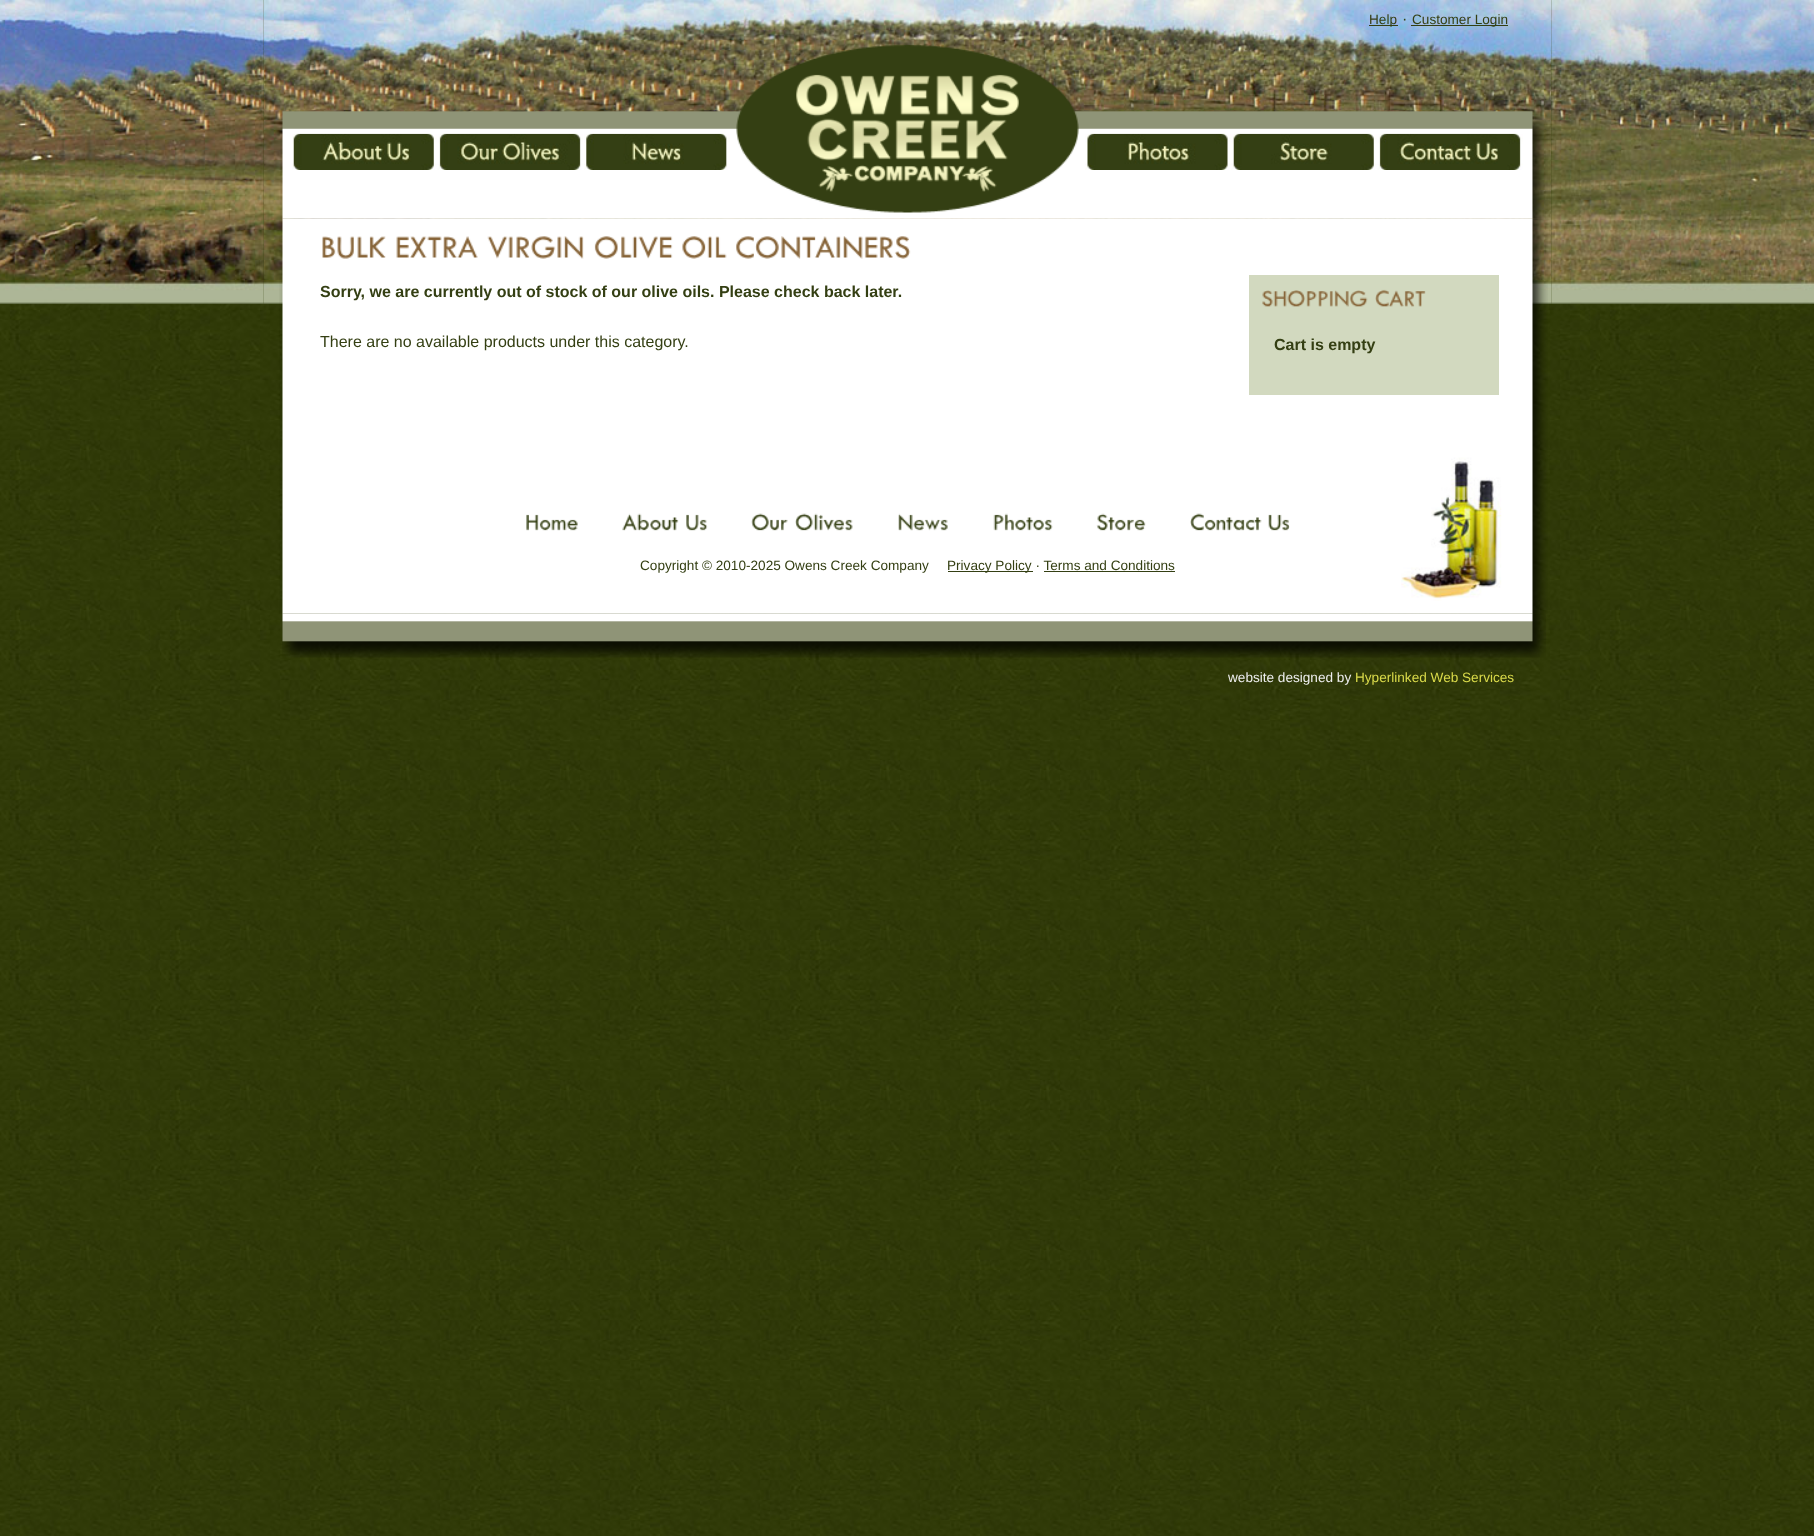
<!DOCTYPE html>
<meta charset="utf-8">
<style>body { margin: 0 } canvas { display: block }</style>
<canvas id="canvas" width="1814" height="1536"></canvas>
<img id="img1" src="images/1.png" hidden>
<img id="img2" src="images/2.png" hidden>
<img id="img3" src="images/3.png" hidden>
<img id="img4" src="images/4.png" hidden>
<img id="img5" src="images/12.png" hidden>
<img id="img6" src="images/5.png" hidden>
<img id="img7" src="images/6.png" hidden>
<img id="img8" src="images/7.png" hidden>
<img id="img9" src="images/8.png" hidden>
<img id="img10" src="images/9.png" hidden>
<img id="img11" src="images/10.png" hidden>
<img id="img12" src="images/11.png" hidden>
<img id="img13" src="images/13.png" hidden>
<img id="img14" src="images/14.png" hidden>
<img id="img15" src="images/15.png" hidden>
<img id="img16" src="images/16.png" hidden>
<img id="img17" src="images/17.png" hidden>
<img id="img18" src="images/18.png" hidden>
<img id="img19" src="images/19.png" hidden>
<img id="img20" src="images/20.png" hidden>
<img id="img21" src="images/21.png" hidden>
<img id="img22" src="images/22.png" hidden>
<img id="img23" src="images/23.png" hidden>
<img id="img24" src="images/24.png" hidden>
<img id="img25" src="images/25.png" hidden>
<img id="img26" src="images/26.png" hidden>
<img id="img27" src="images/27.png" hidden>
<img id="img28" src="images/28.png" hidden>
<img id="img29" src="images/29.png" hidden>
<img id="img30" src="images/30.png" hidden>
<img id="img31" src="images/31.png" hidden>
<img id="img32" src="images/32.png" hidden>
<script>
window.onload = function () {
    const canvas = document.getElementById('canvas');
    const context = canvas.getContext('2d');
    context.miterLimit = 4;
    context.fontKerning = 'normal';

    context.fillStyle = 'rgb(255, 255, 255)';
    context.fillRect(0, 0, 1814, 1536);
    context.drawImage(document.getElementById('img1'), 0, 0, 1814, 1536);
    context.drawImage(document.getElementById('img2'), 263, 0, 1289, 304);
    context.drawImage(document.getElementById('img3'), 0, 0, 264, 304);
    context.drawImage(document.getElementById('img4'), 1551, 0, 263, 304);
    context.drawImage(document.getElementById('img5'), 279, 218, 1269, 396);
    context.drawImage(document.getElementById('img6'), 280, 44, 1268, 175);
    context.fillStyle = 'rgb(52, 63, 19)';
    context.fillRect(1369, 25, 29, 1);
    context.fillRect(1411, 25, 97, 1);
    context.drawImage(document.getElementById('img7'), 292, 133, 145, 37);
    context.drawImage(document.getElementById('img8'), 437, 133, 146, 37);
    context.drawImage(document.getElementById('img9'), 584, 133, 146, 37);
    context.drawImage(document.getElementById('img10'), 1085, 133, 146, 37);
    context.drawImage(document.getElementById('img11'), 1231, 133, 146, 37);
    context.drawImage(document.getElementById('img12'), 1377, 133, 146, 37);
    context.drawImage(document.getElementById('img13'), 322, 236, 64, 23);
    context.drawImage(document.getElementById('img14'), 396, 236, 82, 22);
    context.drawImage(document.getElementById('img15'), 487, 236, 97, 23);
    context.drawImage(document.getElementById('img16'), 594, 236, 79, 23);
    context.drawImage(document.getElementById('img17'), 682, 236, 45, 23);
    context.drawImage(document.getElementById('img18'), 736, 236, 175, 23);
    context.fillStyle = 'rgb(210, 217, 191)';
    context.fillRect(1249, 275, 250, 120);
    context.drawImage(document.getElementById('img19'), 1262, 290, 106, 17);
    context.drawImage(document.getElementById('img20'), 1375, 289, 51, 18);
    context.drawImage(document.getElementById('img21'), 1401, 457, 101, 144);
    context.drawImage(document.getElementById('img22'), 526, 514, 52, 17);
    context.drawImage(document.getElementById('img23'), 622, 513, 57, 18);
    context.drawImage(document.getElementById('img24'), 686, 514, 22, 17);
    context.drawImage(document.getElementById('img25'), 751, 513, 37, 18);
    context.drawImage(document.getElementById('img26'), 795, 513, 58, 18);
    context.drawImage(document.getElementById('img27'), 898, 513, 50, 18);
    context.drawImage(document.getElementById('img28'), 993, 513, 60, 18);
    context.drawImage(document.getElementById('img29'), 1096, 513, 50, 18);
    context.drawImage(document.getElementById('img30'), 1190, 513, 72, 18);
    context.drawImage(document.getElementById('img31'), 1268, 514, 22, 17);
    context.fillStyle = 'rgb(52, 63, 19)';
    context.fillRect(948, 571, 85, 1);
    context.fillRect(1044, 571, 131, 1);
    context.drawImage(document.getElementById('img32'), 282, 613, 1264, 45);
    context.font = '13.6px Liberation Sans';
    context.fillText('Help', 1369, 24);
    context.font = '16px Liberation Sans';
    context.fillText('·', 1402, 24);
    context.font = '13.6px Liberation Sans';
    context.fillText('Customer Login', 1412, 24);
    context.font = 'bold 16px Liberation Sans';
    context.fillText('Sorry, we are currently out of stock of our olive oils. Please check back later.', 320, 297);
    context.font = '16px Liberation Sans';
    context.fillText('There are no available products under this category.', 320, 347);
    context.font = 'bold 16px Liberation Sans';
    context.fillText('Cart is empty', 1274, 350);
    context.font = '13.6px Liberation Sans';
    context.fillText('Copyright © 2010-2025 Owens Creek Company', 640, 570);
    context.fillText('Privacy Policy · Terms and Conditions', 947, 570);
    context.fillStyle = 'rgb(238, 238, 238)';
    context.fillText('website designed by', 1228, 682);
    context.fillStyle = 'rgb(218, 218, 74)';
    context.fillText('Hyperlinked Web Services', 1355, 682);
};
</script>
